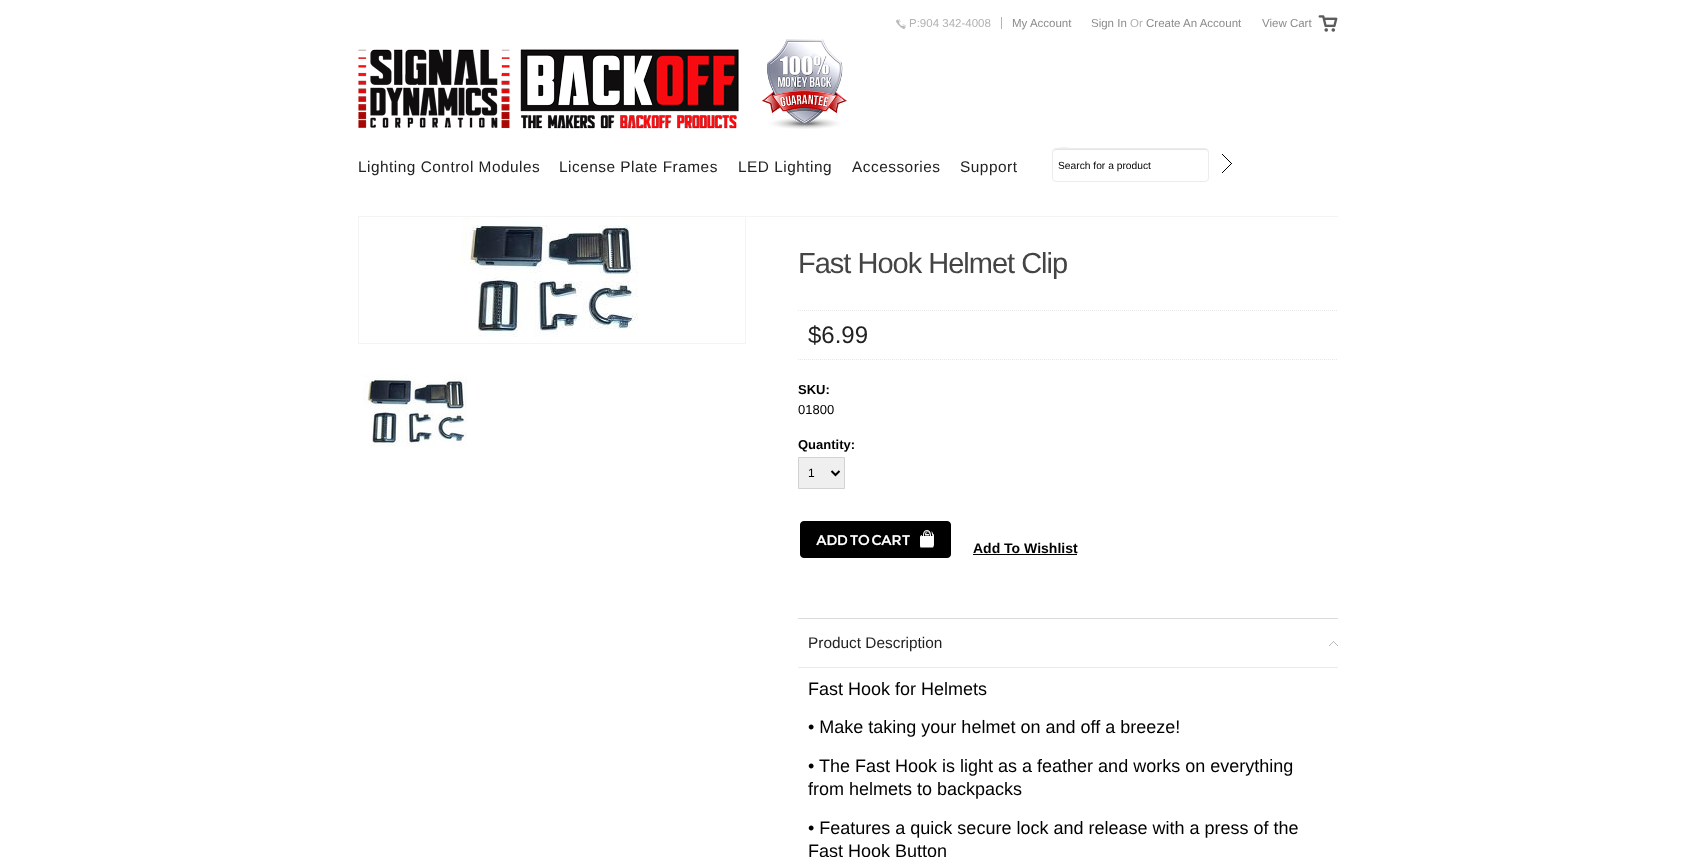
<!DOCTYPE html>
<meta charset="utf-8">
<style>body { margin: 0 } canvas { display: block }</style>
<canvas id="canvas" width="1695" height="857"></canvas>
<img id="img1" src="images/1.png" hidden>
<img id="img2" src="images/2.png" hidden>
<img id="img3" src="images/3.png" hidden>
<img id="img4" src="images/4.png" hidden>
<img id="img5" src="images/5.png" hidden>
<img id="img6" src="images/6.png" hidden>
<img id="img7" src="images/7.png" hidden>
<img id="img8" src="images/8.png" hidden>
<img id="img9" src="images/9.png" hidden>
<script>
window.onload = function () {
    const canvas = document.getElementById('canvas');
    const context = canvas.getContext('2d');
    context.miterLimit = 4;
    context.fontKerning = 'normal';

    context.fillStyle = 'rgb(255, 255, 255)';
    context.fillRect(0, 0, 1695, 857);
    context.drawImage(document.getElementById('img1'), 896, 19, 10, 10);
    context.fillStyle = 'rgb(178, 178, 178)';
    context.fillRect(1001, 17, 1, 12);
    context.drawImage(document.getElementById('img2'), 1318, 15, 20, 17);
    context.drawImage(document.getElementById('img3'), 358, 49, 381, 80);
    context.drawImage(document.getElementById('img4'), 762, 39, 85, 90);
    context.fillStyle = 'rgb(229, 229, 229)';
    context.beginPath();
    context.moveTo(1056, 150);
    context.lineTo(1205, 150);
    context.bezierCurveTo(1207, 150, 1208, 151, 1208, 153);
    context.bezierCurveTo(1208, 151, 1208, 150, 1206, 149);
    context.lineTo(1081, 149);
    context.bezierCurveTo(1073, 149, 1053, 144, 1053, 153);
    context.bezierCurveTo(1053, 151, 1054, 150, 1056, 150);
    context.closePath();
    context.fill();
    context.beginPath();
    context.roundRect(1052.5, 148.5, 156, 33, 3.5);
    context.strokeStyle = 'rgb(236, 236, 236)';
    context.stroke();
    context.drawImage(document.getElementById('img5'), 1222, 154, 10, 19);
    context.fillStyle = 'rgb(244, 244, 244)';
    context.fillRect(358, 216, 980, 1);
    context.fillRect(745, 217, 1, 127);
    context.fillRect(358, 343, 388, 1);
    context.fillRect(358, 217, 1, 127);
    context.drawImage(document.getElementById('img6'), 462, 217, 176, 120);
    context.drawImage(document.getElementById('img7'), 363, 375, 104, 72);
    context.beginPath();
    context.moveTo(798, 310.5);
    context.lineTo(1338, 310.5);
    context.strokeStyle = 'rgb(231, 231, 231)';
    context.setLineDash([1, 1]);
    context.stroke();
    context.beginPath();
    context.moveTo(798, 359.5);
    context.lineTo(1338, 359.5);
    context.stroke();
    context.fillStyle = 'rgb(239, 239, 239)';
    context.beginPath();
    context.rect(798.5, 457.5, 46, 31);
    context.fill();
    context.strokeStyle = 'rgb(210, 210, 210)';
    context.setLineDash([]);
    context.stroke();
    context.beginPath();
    context.moveTo(831.5, 471);
    context.lineTo(835.5, 475);
    context.lineTo(839.5, 471);
    context.strokeStyle = 'rgb(0, 0, 0)';
    context.lineWidth = 2;
    context.stroke();
    context.drawImage(document.getElementById('img8'), 800, 521, 151, 37);
    context.fillStyle = 'rgb(0, 0, 0)';
    context.fillRect(973, 554, 104, 1);
    context.drawImage(document.getElementById('img9'), 1329, 641, 9, 5);
    context.fillStyle = 'rgb(218, 218, 218)';
    context.fillRect(798, 618, 540, 1);
    context.fillStyle = 'rgb(234, 234, 234)';
    context.fillRect(798, 667, 540, 1);
    context.font = '11.5px Liberation Sans';
    context.fillStyle = 'rgb(178, 178, 178)';
    context.fillText('P:904 342-4008', 909, 27);
    context.fillStyle = 'rgb(140, 140, 140)';
    context.fillText('My Account', 1012, 27);
    context.fillText('Sign In', 1091, 27);
    context.fillStyle = 'rgb(178, 178, 178)';
    context.fillText('Or', 1130, 27);
    context.fillStyle = 'rgb(140, 140, 140)';
    context.fillText('Create An Account', 1146, 27);
    context.fillText('View Cart', 1262, 27);
    context.letterSpacing = '0.5px';
    context.font = '15.4px Liberation Sans';
    context.fillStyle = 'rgb(34, 34, 34)';
    context.fillText('Lighting Control Modules', 358, 172);
    context.fillText('License Plate Frames', 559, 172);
    context.fillText('LED Lighting', 738, 172);
    context.fillText('Accessories', 852, 172);
    context.fillText('Support', 960, 172);
    context.letterSpacing = '0px';
    context.font = '10.25px Liberation Sans';
    context.fillStyle = 'rgb(0, 0, 0)';
    context.fillText('Search for a product', 1058, 169);
    context.letterSpacing = '-1px';
    context.font = '29px Liberation Sans';
    context.fillStyle = 'rgb(68, 68, 68)';
    context.fillText('Fast Hook Helmet Clip', 798, 273);
    context.letterSpacing = '0px';
    context.font = '24px Liberation Sans';
    context.fillStyle = 'rgb(34, 34, 34)';
    context.fillText('$6.99', 808, 343);
    context.font = 'bold 13px Liberation Sans';
    context.fillStyle = 'rgb(0, 0, 0)';
    context.fillText('SKU:', 798, 394);
    context.font = '13px Liberation Sans';
    context.fillText('01800', 798, 414);
    context.font = 'bold 13px Liberation Sans';
    context.fillText('Quantity:', 798, 449);
    context.font = '12px Liberation Sans';
    context.fillText('1', 808, 477);
    context.font = 'bold 14px Liberation Sans';
    context.fillText('Add To Wishlist', 973, 553);
    context.font = '15.4px Liberation Sans';
    context.fillStyle = 'rgb(34, 34, 34)';
    context.fillText('Product Description', 808, 648);
    context.font = '18px Liberation Sans';
    context.fillStyle = 'rgb(0, 0, 0)';
    context.fillText('Fast Hook for Helmets', 808, 695);
    context.fillText('• Make taking your helmet on and off a breeze!', 808, 733);
    context.fillText('• The Fast Hook is light as a feather and works on everything', 808, 772);
    context.fillText('from helmets to backpacks', 808, 795);
    context.fillText('• Features a quick secure lock and release with a press of the', 808, 834);
    context.fillText('Fast Hook Button', 808, 857);
};
</script>
